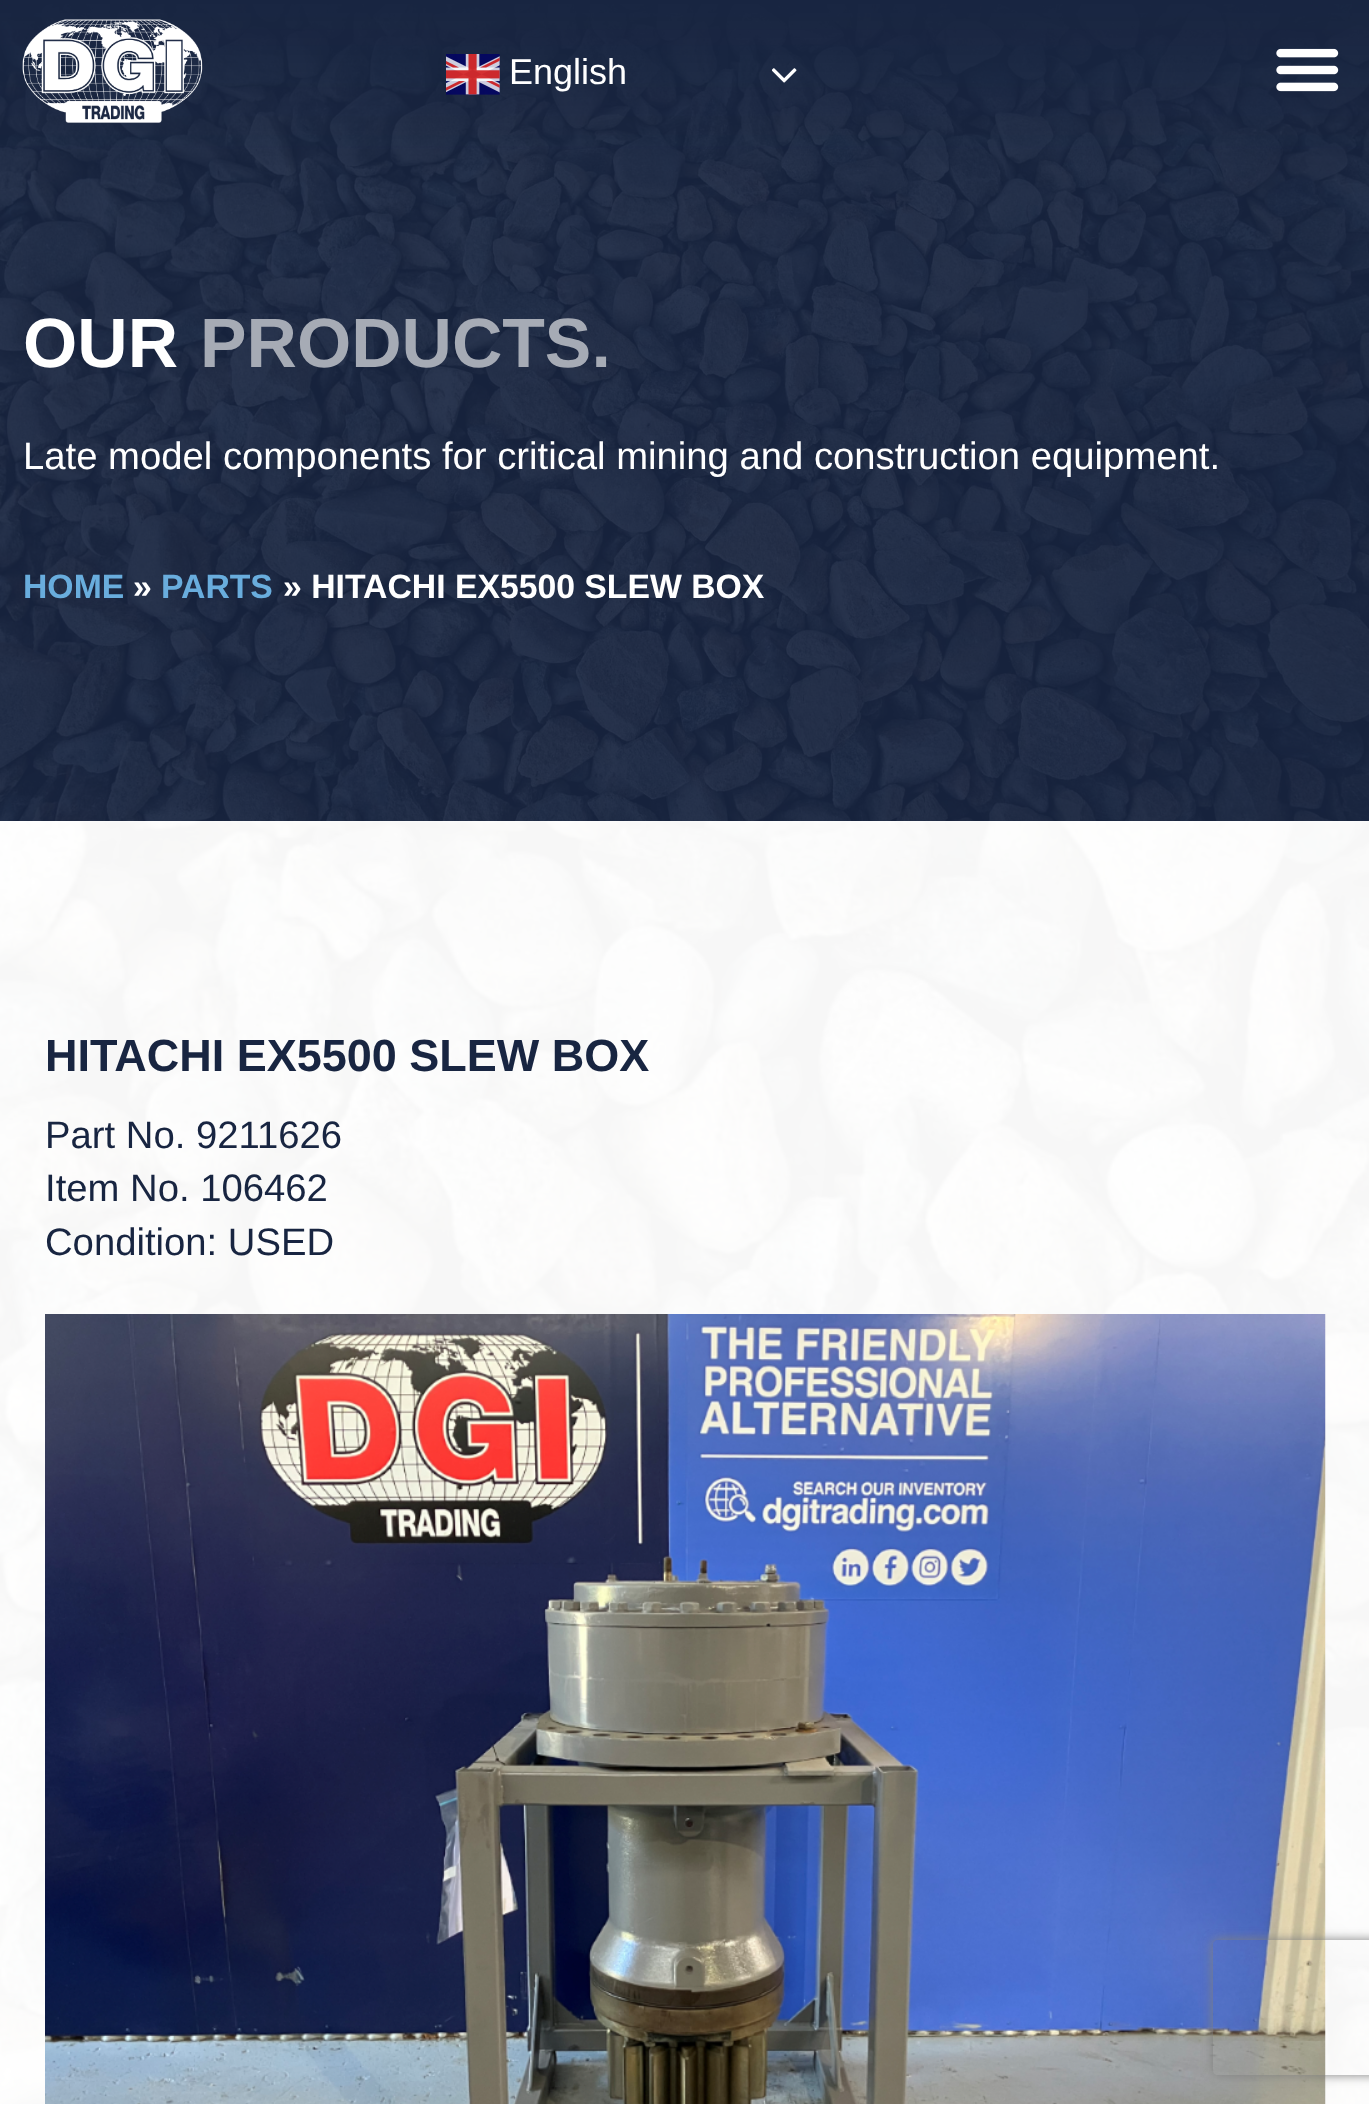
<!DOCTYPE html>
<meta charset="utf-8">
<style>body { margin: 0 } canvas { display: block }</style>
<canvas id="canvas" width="1369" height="2104"></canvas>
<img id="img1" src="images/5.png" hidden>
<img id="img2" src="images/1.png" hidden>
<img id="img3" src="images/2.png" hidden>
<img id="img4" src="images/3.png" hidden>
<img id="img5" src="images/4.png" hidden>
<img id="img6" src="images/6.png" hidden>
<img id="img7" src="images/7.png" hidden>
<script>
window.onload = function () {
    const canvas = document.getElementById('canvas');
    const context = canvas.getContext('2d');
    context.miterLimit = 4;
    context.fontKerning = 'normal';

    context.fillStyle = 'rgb(255, 255, 255)';
    context.fillRect(0, 0, 1369, 2104);
    context.drawImage(document.getElementById('img1'), 0, 0, 1369, 822);
    context.drawImage(document.getElementById('img2'), 22, 19, 181, 104);
    context.drawImage(document.getElementById('img3'), 446, 54, 54, 41);
    context.drawImage(document.getElementById('img4'), 772, 68, 25, 15);
    context.drawImage(document.getElementById('img5'), 1276, 48, 63, 44);
    context.drawImage(document.getElementById('img6'), 0, 821, 1369, 1283);
    context.fillStyle = 'rgba(255, 255, 255, 0.97)';
    context.fillRect(0, 821, 1369, 1283);
    context.drawImage(document.getElementById('img7'), 45, 1314, 1281, 790);
    context.save();
    context.beginPath();
    context.moveTo(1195, 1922);
    context.lineTo(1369, 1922);
    context.lineTo(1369, 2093);
    context.lineTo(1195, 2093);
    context.closePath();
    context.moveTo(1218, 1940);
    context.lineTo(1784, 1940);
    context.bezierCurveTo(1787, 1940, 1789, 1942, 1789, 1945);
    context.lineTo(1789, 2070);
    context.bezierCurveTo(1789, 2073, 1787, 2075, 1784, 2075);
    context.lineTo(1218, 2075);
    context.bezierCurveTo(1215, 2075, 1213, 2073, 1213, 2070);
    context.lineTo(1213, 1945);
    context.bezierCurveTo(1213, 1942, 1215, 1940, 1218, 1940);
    context.closePath();
    context.clip('evenodd');
    context.fillStyle = 'rgb(128, 128, 128)';
    context.filter = 'blur(5.5px)';
    context.beginPath();
    context.roundRect(1213, 1940, 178, 135, 5);
    context.fill();
    context.filter = 'none';
    context.restore();
    context.font = '36px Liberation Sans';
    context.fillStyle = 'rgb(255, 255, 255)';
    context.fillText('English', 509, 84);
    context.font = 'bold 69.75px Liberation Sans';
    context.fillText('OUR', 23, 367);
    context.fillStyle = 'rgb(166, 171, 181)';
    context.fillText('PRODUCTS.', 200, 367);
    context.font = '38.25px Liberation Sans';
    context.fillStyle = 'rgb(255, 255, 255)';
    context.fillText('Late model components for critical mining and construction equipment.', 23, 469);
    context.font = 'bold 33.75px Liberation Sans';
    context.fillStyle = 'rgb(105, 173, 221)';
    context.fillText('HOME', 23, 598);
    context.fillStyle = 'rgb(255, 255, 255)';
    context.fillText('»', 133, 598);
    context.fillStyle = 'rgb(105, 173, 221)';
    context.fillText('PARTS', 161, 598);
    context.fillStyle = 'rgb(255, 255, 255)';
    context.fillText('» HITACHI EX5500 SLEW BOX', 283, 598);
    context.font = 'bold 45px Liberation Sans';
    context.fillStyle = 'rgb(24, 37, 65)';
    context.fillText('HITACHI EX5500 SLEW BOX', 45, 1071);
    context.font = '38.25px Liberation Sans';
    context.fillText('Part No. 9211626', 45, 1148);
    context.fillText('Item No. 106462', 45, 1201);
    context.fillText('Condition: USED', 45, 1255);
};
</script>
